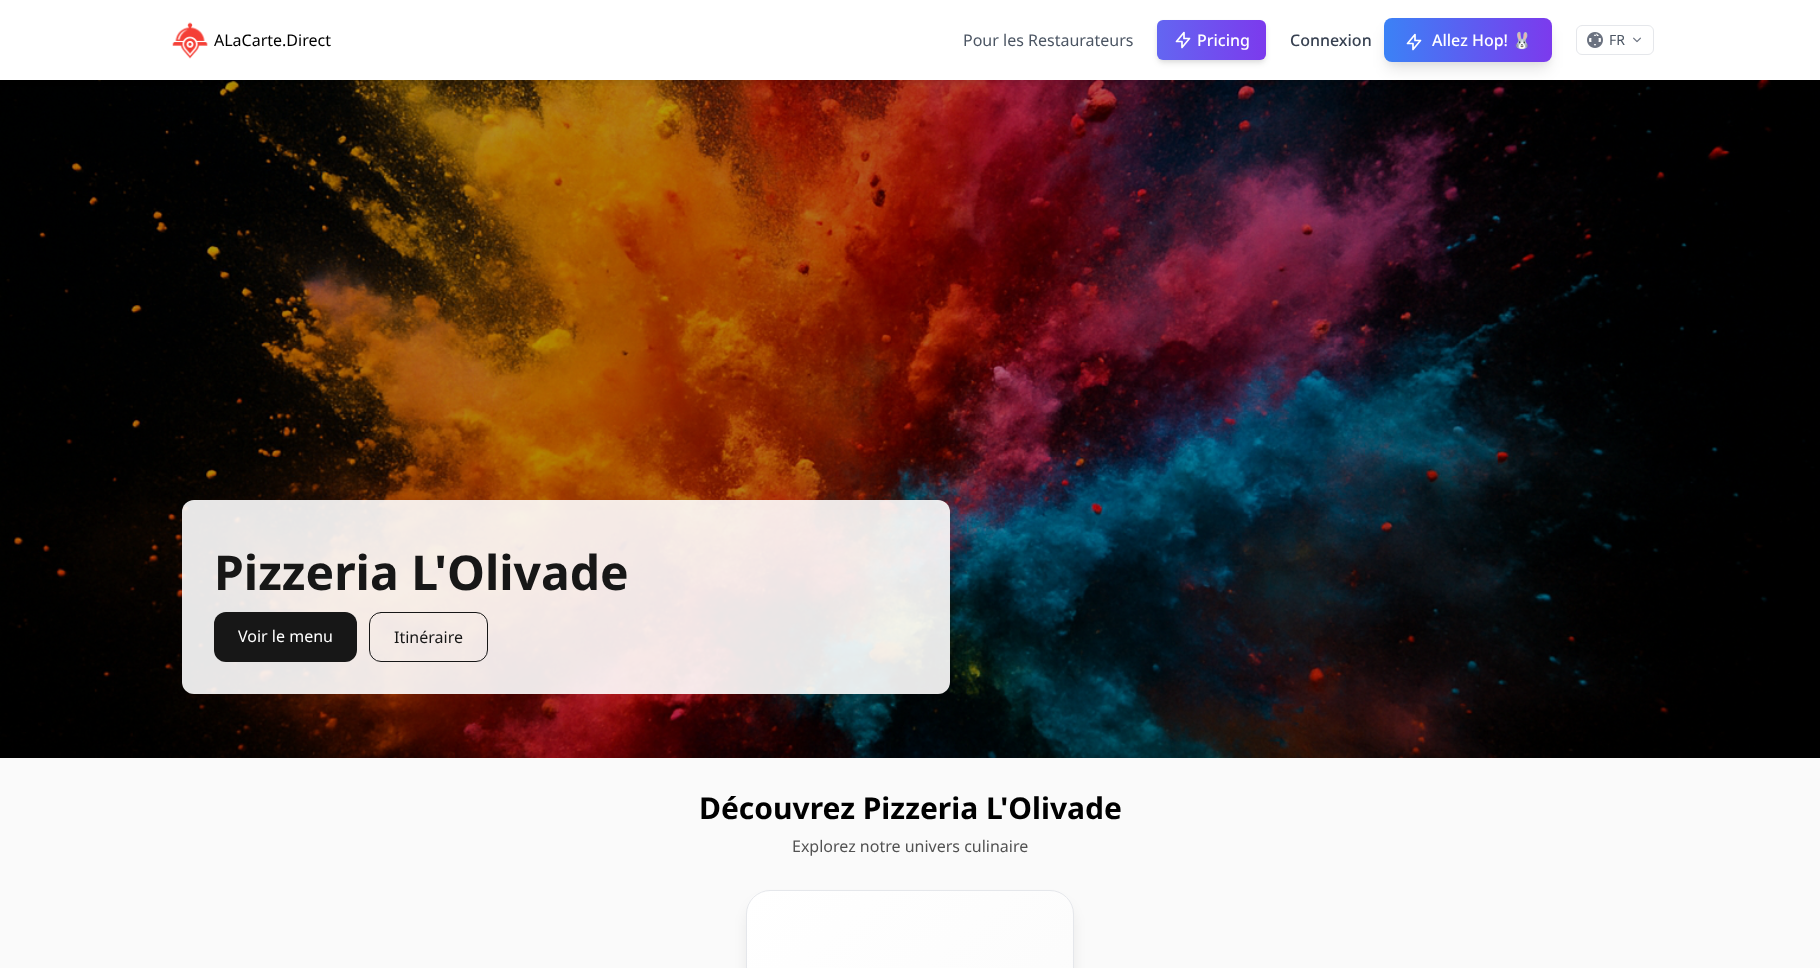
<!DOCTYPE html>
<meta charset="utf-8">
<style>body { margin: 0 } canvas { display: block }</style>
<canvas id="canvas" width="1820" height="968"></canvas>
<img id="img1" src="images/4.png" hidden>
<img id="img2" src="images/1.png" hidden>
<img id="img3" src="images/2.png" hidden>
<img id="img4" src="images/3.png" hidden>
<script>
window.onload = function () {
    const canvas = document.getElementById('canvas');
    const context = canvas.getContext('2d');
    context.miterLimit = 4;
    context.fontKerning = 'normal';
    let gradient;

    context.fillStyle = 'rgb(255, 255, 255)';
    context.fillRect(0, 0, 1820, 968);
    context.drawImage(document.getElementById('img1'), 0, 80, 1820, 678);
    context.save();
    context.beginPath();
    context.rect(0, 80, 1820, 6);
    context.clip();
    context.fillStyle = 'rgba(0, 0, 0, 0.1)';
    context.filter = 'blur(3px)';
    context.beginPath();
    context.rect(1, 5, 1818, 78);
    context.fill();
    context.filter = 'none';
    context.restore();
    context.drawImage(document.getElementById('img2'), 172, 22, 36, 37);
    context.fillStyle = 'rgba(0, 0, 0, 0.06)';
    context.filter = 'blur(2px)';
    context.beginPath();
    context.roundRect(1158, 23, 107, 38, 5);
    context.fill();
    context.filter = 'none';
    context.fillStyle = 'rgba(0, 0, 0, 0.1)';
    context.filter = 'blur(3px)';
    context.beginPath();
    context.roundRect(1158, 25, 107, 38, 5);
    context.fill();
    context.filter = 'none';
    gradient = context.createLinearGradient(1157, 40, 1266, 40);
    gradient.addColorStop(0, 'rgb(99, 102, 241)');
    gradient.addColorStop(1, 'rgb(124, 58, 237)');
    context.fillStyle = gradient;
    context.beginPath();
    context.roundRect(1157, 20, 109, 40, 6);
    context.fill();
    context.beginPath();
    context.moveTo(1184, 38.5);
    context.lineTo(1184, 32.5);
    context.lineTo(1176.5, 41.5);
    context.lineTo(1182, 41.5);
    context.lineTo(1182, 47.5);
    context.lineTo(1189.5, 38.5);
    context.closePath();
    context.strokeStyle = 'rgb(255, 255, 255)';
    context.lineWidth = 1.7;
    context.lineCap = 'round';
    context.lineJoin = 'round';
    context.stroke();
    context.fillStyle = 'rgba(0, 0, 0, 0.05)';
    context.filter = 'blur(3px)';
    context.beginPath();
    context.roundRect(1386, 24, 164, 40, 6);
    context.fill();
    context.filter = 'none';
    context.fillStyle = 'rgba(0, 0, 0, 0.1)';
    context.filter = 'blur(7.5px)';
    context.beginPath();
    context.roundRect(1387, 31, 162, 38, 5);
    context.fill();
    context.filter = 'none';
    gradient = context.createLinearGradient(1384, 40, 1552, 40);
    gradient.addColorStop(0, 'rgb(59, 130, 246)');
    gradient.addColorStop(1, 'rgb(124, 58, 237)');
    context.fillStyle = gradient;
    context.beginPath();
    context.roundRect(1384, 18, 168, 44, 8);
    context.fill();
    context.beginPath();
    context.moveTo(1415, 40.5);
    context.lineTo(1415, 34.5);
    context.lineTo(1407.5, 43.5);
    context.lineTo(1413, 43.5);
    context.lineTo(1413, 49.5);
    context.lineTo(1420.5, 40.5);
    context.closePath();
    context.stroke();
    context.beginPath();
    context.roundRect(1576.5, 25.5, 77, 29, 5.5);
    context.strokeStyle = 'rgb(229, 231, 235)';
    context.lineWidth = 1;
    context.lineJoin = 'miter';
    context.stroke();
    context.drawImage(document.getElementById('img3'), 1587, 32, 16, 16);
    context.drawImage(document.getElementById('img4'), 1633, 37, 8, 6);
    context.fillStyle = 'rgba(255, 255, 255, 0.9)';
    context.beginPath();
    context.roundRect(182, 500, 768, 194, 12);
    context.fill();
    context.fillStyle = 'rgb(23, 23, 23)';
    context.beginPath();
    context.roundRect(214, 612, 143, 50, 12);
    context.fill();
    context.beginPath();
    context.roundRect(369.5, 612.5, 118, 49, 11.5);
    context.strokeStyle = 'rgb(23, 23, 23)';
    context.stroke();
    context.fillStyle = 'rgb(250, 250, 250)';
    context.fillRect(0, 758, 1820, 210);
    context.fillStyle = 'rgba(0, 0, 0, 0.1)';
    context.filter = 'blur(7.5px)';
    context.beginPath();
    context.roundRect(749, 903, 322, 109, 21);
    context.fill();
    context.filter = 'none';
    context.save();
    context.beginPath();
    context.roundRect(746, 890, 328, 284, 24);
    context.clip();
    gradient = context.createLinearGradient(770, 871, 1050, 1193);
    gradient.addColorStop(0, 'rgb(255, 255, 255)');
    gradient.addColorStop(1, 'rgb(250, 250, 250)');
    context.fillStyle = gradient;
    context.fillRect(747, 891, 326, 77);
    context.restore();
    context.beginPath();
    context.roundRect(746.5, 890.5, 327, 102, 23.5);
    context.strokeStyle = 'rgb(229, 231, 235)';
    context.stroke();
    context.font = '16px Noto Sans';
    context.fillStyle = 'rgb(0, 0, 0)';
    context.fillText('ALaCarte.Direct', 214, 46);
    context.fillStyle = 'rgb(75, 85, 99)';
    context.fillText('Pour les Restaurateurs', 963, 46);
    context.font = '500 16px Noto Sans';
    context.fillStyle = 'rgb(255, 255, 255)';
    context.fillText('Pricing', 1197, 46);
    context.fillStyle = 'rgb(55, 65, 81)';
    context.fillText('Connexion', 1290, 46);
    context.fillStyle = 'rgb(255, 255, 255)';
    context.fillText('Allez Hop!', 1432, 46);
    context.font = '16px Noto Color Emoji';
    context.fillText('🐰', 1512, 46);
    context.font = '14px Noto Sans';
    context.fillStyle = 'rgb(75, 85, 99)';
    context.fillText('FR', 1609, 45);
    context.font = 'bold 48px Noto Sans';
    context.fillStyle = 'rgb(23, 23, 23)';
    context.fillText('Pizzeria L\'Olivade', 214, 590);
    context.font = '16px Noto Sans';
    context.fillStyle = 'rgb(255, 255, 255)';
    context.fillText('Voir le menu', 238, 642);
    context.fillStyle = 'rgb(23, 23, 23)';
    context.fillText('Itinéraire', 394, 643);
    context.font = 'bold 30px Noto Sans';
    context.fillStyle = 'rgb(0, 0, 0)';
    context.fillText('Découvrez Pizzeria L\'Olivade', 699, 819);
    context.font = '16px Noto Sans';
    context.fillStyle = 'rgb(82, 82, 82)';
    context.fillText('Explorez notre univers culinaire', 792, 852);
};
</script>
